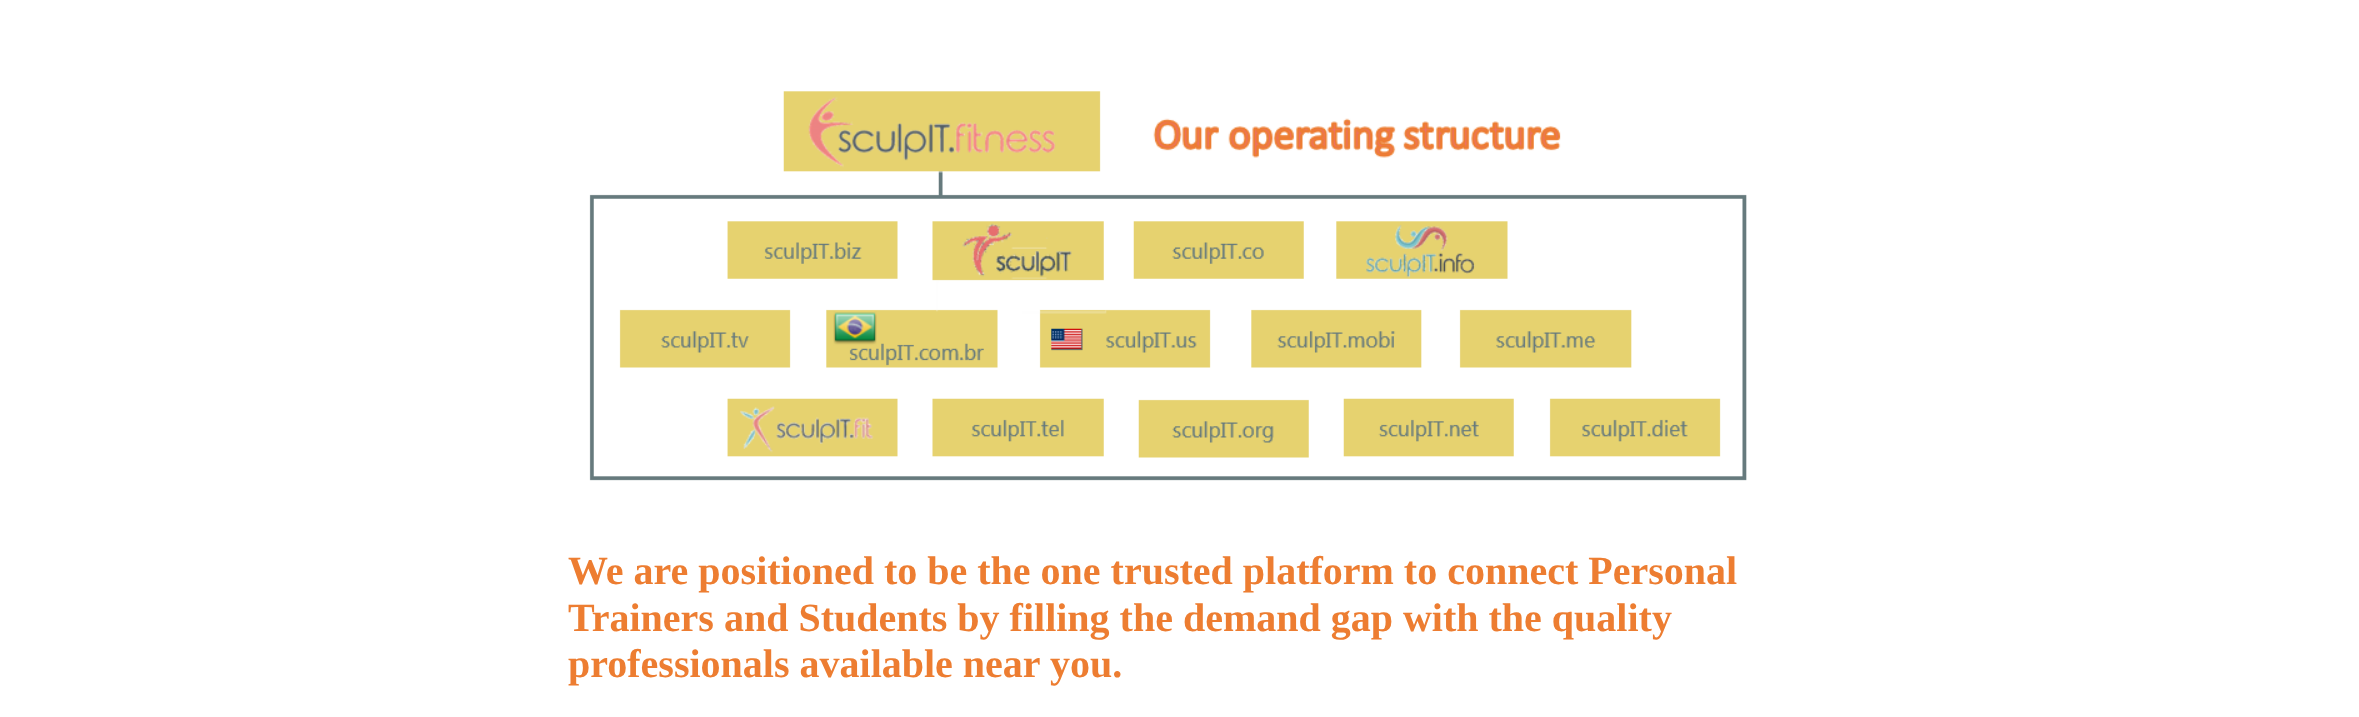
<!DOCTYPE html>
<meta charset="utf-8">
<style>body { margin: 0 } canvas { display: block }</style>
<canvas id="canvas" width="2359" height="717"></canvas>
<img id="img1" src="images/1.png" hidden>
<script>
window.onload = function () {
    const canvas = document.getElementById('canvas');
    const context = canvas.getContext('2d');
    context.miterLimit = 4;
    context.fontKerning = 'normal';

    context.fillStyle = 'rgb(255, 255, 255)';
    context.fillRect(0, 0, 2359, 717);
    context.drawImage(document.getElementById('img1'), 589, 91, 1158, 390);
    context.font = 'bold 40px Liberation Serif';
    context.fillStyle = 'rgb(237, 125, 49)';
    context.fillText('We are positioned to be the one trusted platform to connect Personal', 568, 584);
    context.fillText('Trainers and Students by filling the demand gap with the quality', 568, 631);
    context.fillText('professionals available near you.', 568, 677);
};
</script>
